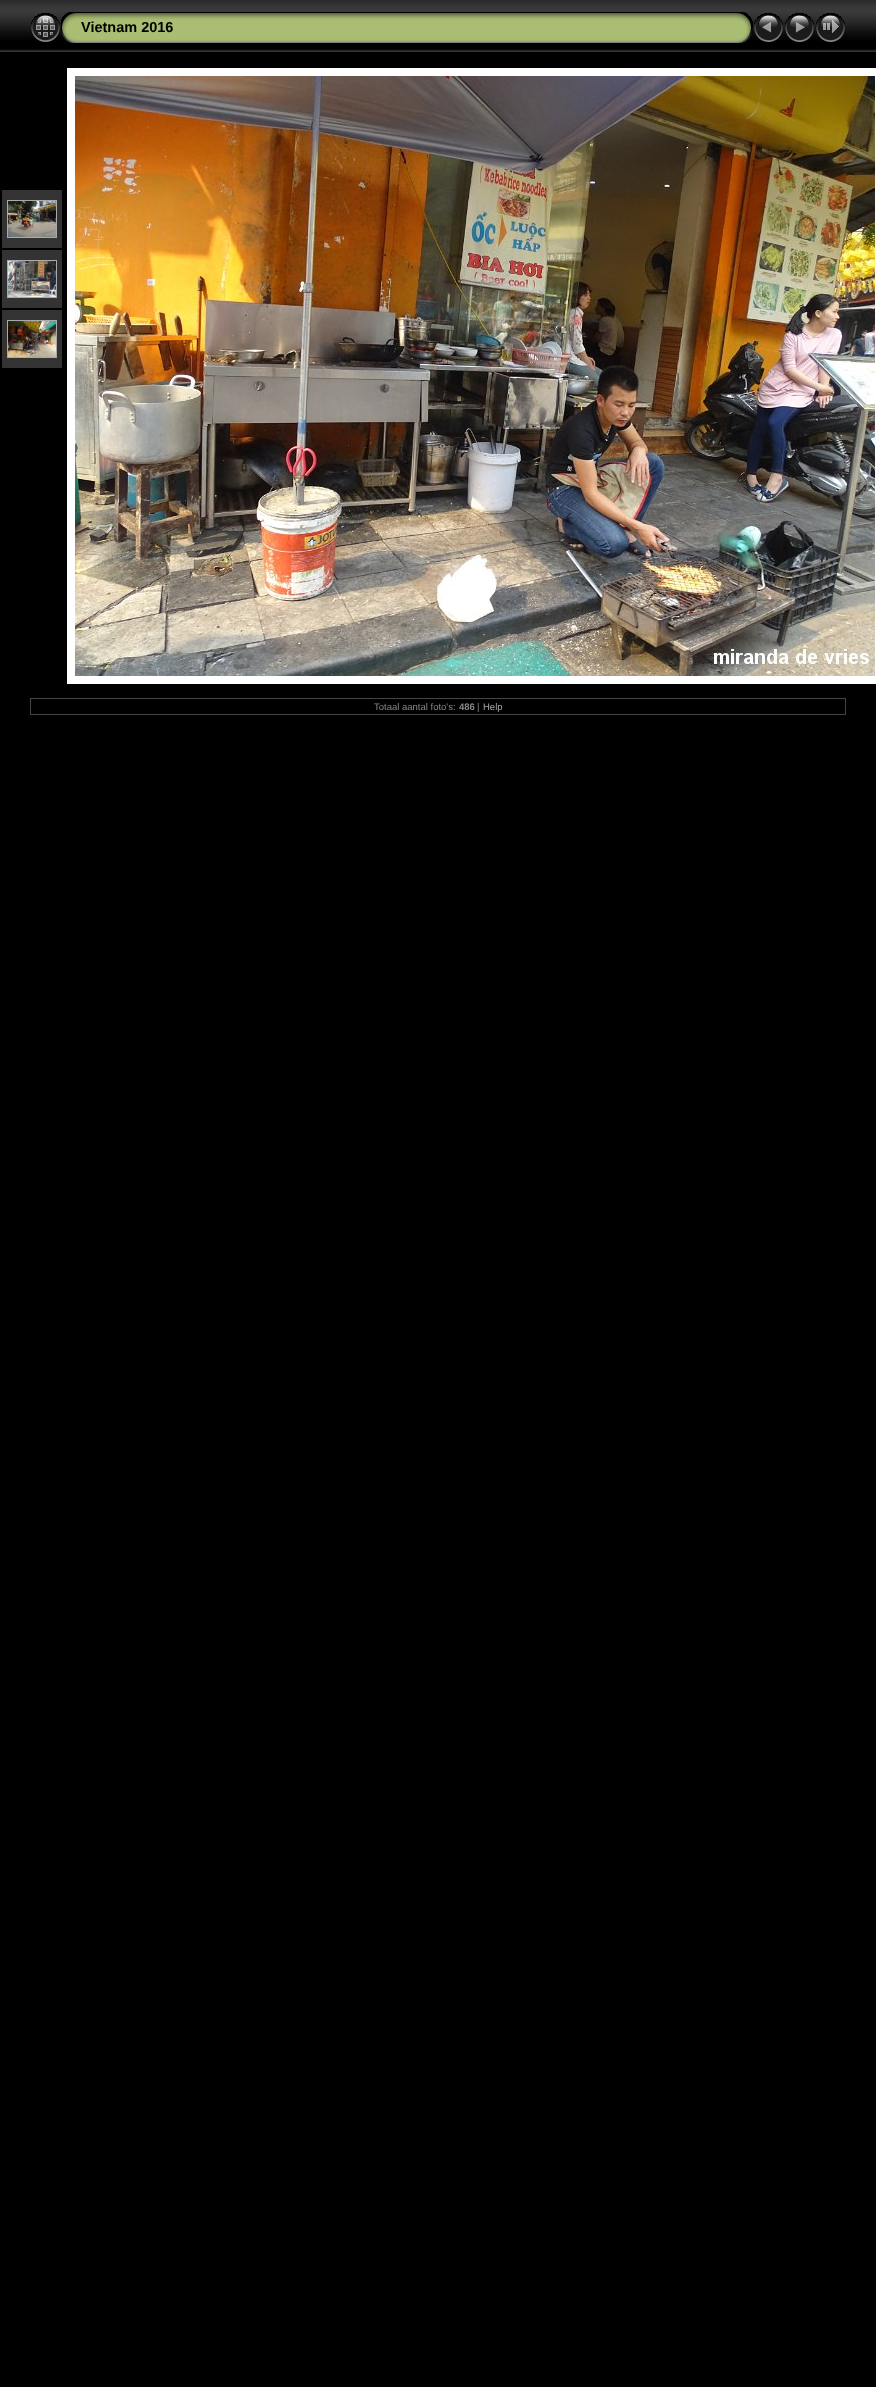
<!DOCTYPE html>
<meta charset="utf-8">
<style>body { margin: 0 } canvas { display: block }</style>
<canvas id="canvas" width="876" height="2387"></canvas>
<img id="img1" src="images/1.png" hidden>
<img id="img2" src="images/2.png" hidden>
<img id="img3" src="images/3.png" hidden>
<img id="img4" src="images/4.png" hidden>
<img id="img5" src="images/5.png" hidden>
<img id="img6" src="images/6.png" hidden>
<img id="img7" src="images/7.png" hidden>
<img id="img8" src="images/8.png" hidden>
<img id="img9" src="images/9.png" hidden>
<img id="img10" src="images/10.png" hidden>
<img id="img11" src="images/11.png" hidden>
<img id="img12" src="images/12.png" hidden>
<script>
window.onload = function () {
    const canvas = document.getElementById('canvas');
    const context = canvas.getContext('2d');
    context.miterLimit = 4;
    context.fontKerning = 'normal';

    context.fillStyle = 'rgb(0, 0, 0)';
    context.fillRect(0, 0, 876, 2387);
    context.drawImage(document.getElementById('img1'), 0, 0, 876, 52);
    context.drawImage(document.getElementById('img2'), 31, 13, 29, 29);
    context.drawImage(document.getElementById('img3'), 61, 12, 20, 31);
    context.drawImage(document.getElementById('img4'), 81, 12, 652, 31);
    context.drawImage(document.getElementById('img5'), 733, 12, 20, 31);
    context.drawImage(document.getElementById('img6'), 754, 13, 29, 29);
    context.drawImage(document.getElementById('img7'), 785, 13, 29, 29);
    context.drawImage(document.getElementById('img8'), 816, 13, 29, 29);
    context.fillStyle = 'rgb(51, 51, 51)';
    context.fillRect(2, 190, 60, 58);
    context.strokeStyle = 'rgb(170, 170, 170)';
    context.strokeRect(7.5, 200.5, 49, 37);
    context.drawImage(document.getElementById('img9'), 8, 201, 48, 36);
    context.fillRect(2, 250, 60, 58);
    context.strokeRect(7.5, 260.5, 49, 37);
    context.drawImage(document.getElementById('img10'), 8, 261, 48, 36);
    context.fillRect(2, 310, 60, 58);
    context.strokeRect(7.5, 320.5, 49, 37);
    context.drawImage(document.getElementById('img11'), 8, 321, 48, 36);
    context.strokeStyle = 'rgb(255, 255, 255)';
    context.lineWidth = 8;
    context.strokeRect(71, 72, 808, 608);
    context.drawImage(document.getElementById('img12'), 75, 76, 800, 600);
    context.fillStyle = 'rgb(68, 68, 68)';
    context.fillRect(30, 698, 816, 1);
    context.fillRect(845, 698, 1, 17);
    context.fillRect(30, 714, 816, 1);
    context.fillRect(30, 698, 1, 17);
    context.font = 'bold 14.5px Liberation Sans';
    context.fillStyle = 'rgb(0, 0, 0)';
    context.fillText('Vietnam 2016', 81, 32);
    context.font = '9.5px Liberation Sans';
    context.fillStyle = 'rgb(136, 136, 136)';
    context.fillText('Totaal aantal foto\'s:', 374, 710);
    context.font = 'bold 9.5px Liberation Sans';
    context.fillText('486', 459, 710);
    context.font = '9.5px Liberation Sans';
    context.fillText('|', 477, 710);
    context.fillStyle = 'rgb(170, 170, 170)';
    context.fillText('Help', 483, 710);
};
</script>
